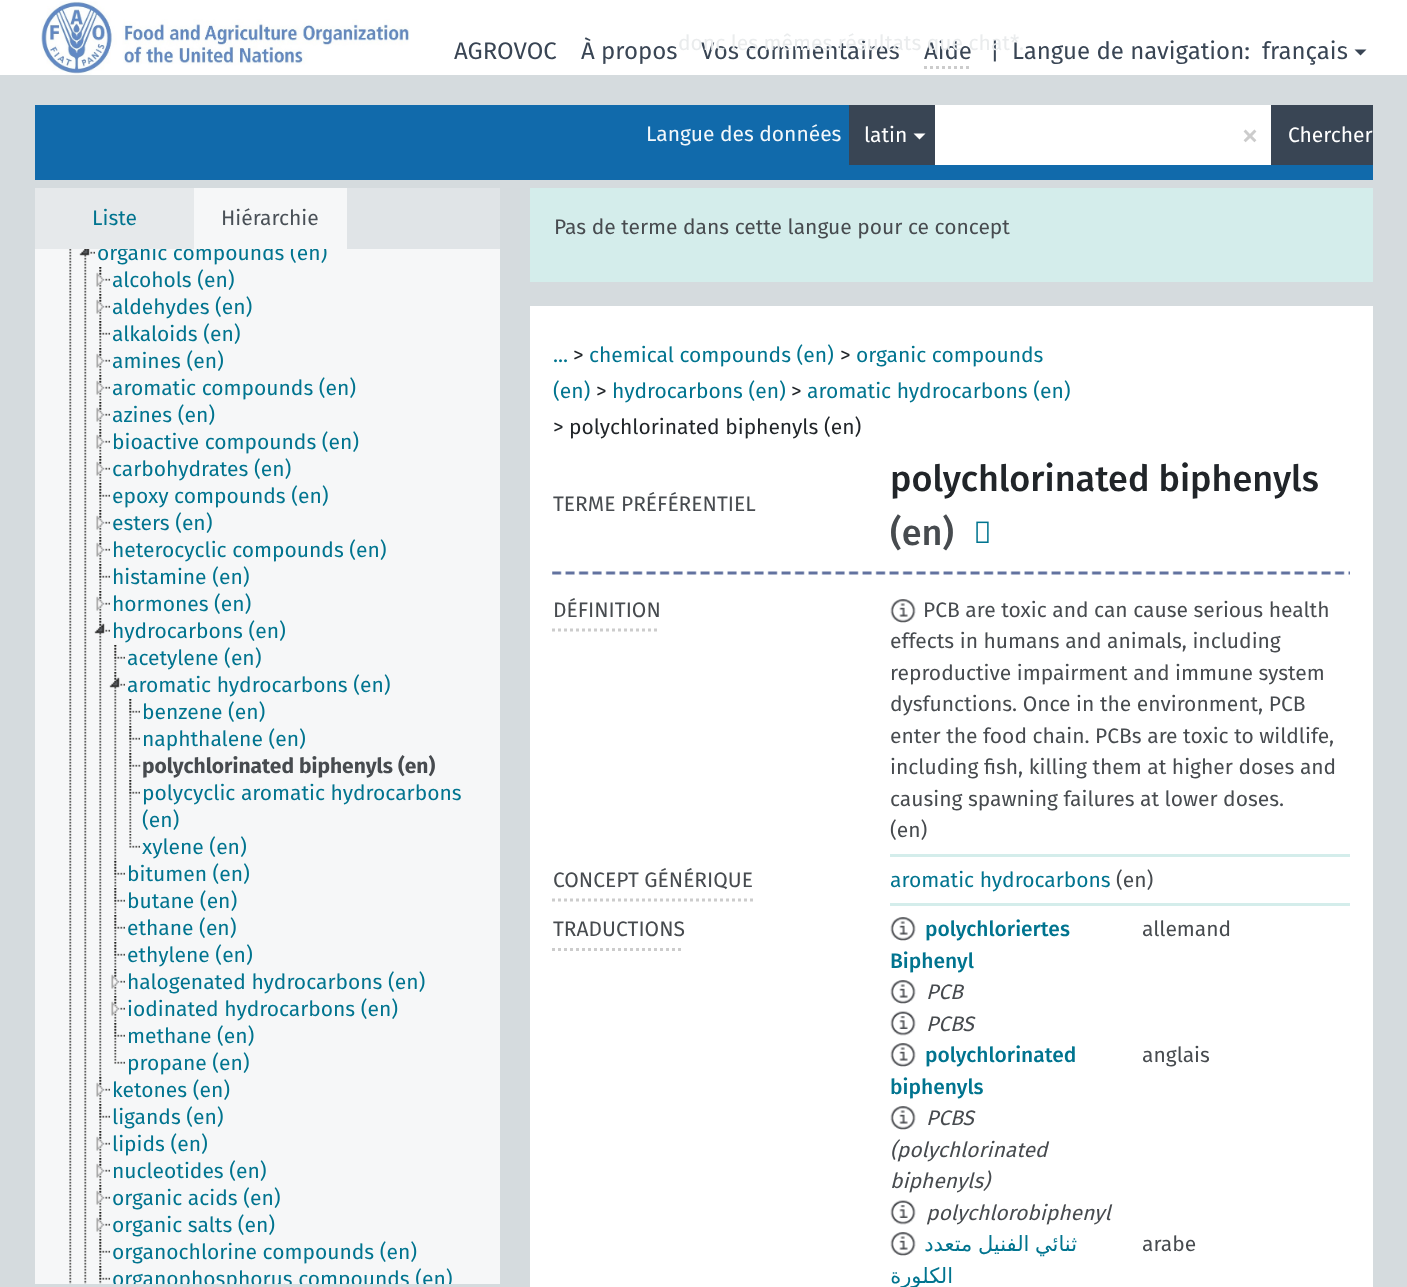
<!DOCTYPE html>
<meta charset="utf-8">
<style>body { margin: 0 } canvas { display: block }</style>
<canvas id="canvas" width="1407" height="1287"></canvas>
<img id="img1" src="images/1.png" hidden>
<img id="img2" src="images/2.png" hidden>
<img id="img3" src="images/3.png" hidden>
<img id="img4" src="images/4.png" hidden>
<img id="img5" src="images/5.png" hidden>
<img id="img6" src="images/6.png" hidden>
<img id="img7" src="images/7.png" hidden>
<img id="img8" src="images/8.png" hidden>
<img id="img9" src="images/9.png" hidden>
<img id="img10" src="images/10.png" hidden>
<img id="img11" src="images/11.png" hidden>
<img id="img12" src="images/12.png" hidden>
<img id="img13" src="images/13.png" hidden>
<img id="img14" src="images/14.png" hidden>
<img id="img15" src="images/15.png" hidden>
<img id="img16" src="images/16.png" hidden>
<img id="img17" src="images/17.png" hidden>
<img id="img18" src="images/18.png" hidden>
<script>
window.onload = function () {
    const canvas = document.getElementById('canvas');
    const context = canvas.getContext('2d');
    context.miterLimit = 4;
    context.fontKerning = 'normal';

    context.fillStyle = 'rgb(213, 219, 222)';
    context.fillRect(0, 0, 1407, 1287);
    context.fillStyle = 'rgb(255, 255, 255)';
    context.fillRect(0, 0, 1407, 75);
    context.drawImage(document.getElementById('img1'), 41, 1, 369, 74);
    context.beginPath();
    context.moveTo(924, 67.5);
    context.lineTo(972, 67.5);
    context.strokeStyle = 'rgb(204, 204, 204)';
    context.lineWidth = 3;
    context.setLineDash([3, 3]);
    context.stroke();
    context.fillStyle = 'rgb(57, 69, 84)';
    context.beginPath();
    context.moveTo(1354.5, 49.5);
    context.lineTo(1366.5, 49.5);
    context.lineTo(1360.5, 55.5);
    context.closePath();
    context.fill();
    context.fillStyle = 'rgb(17, 106, 171)';
    context.fillRect(35, 105, 1338, 75);
    context.fillStyle = 'rgb(57, 69, 84)';
    context.fillRect(849, 105, 86, 60);
    context.fillStyle = 'rgb(255, 255, 255)';
    context.beginPath();
    context.moveTo(913.5, 133.5);
    context.lineTo(925.5, 133.5);
    context.lineTo(919.5, 139.5);
    context.closePath();
    context.fill();
    context.fillRect(935, 105, 336, 60);
    context.fillStyle = 'rgb(57, 69, 84)';
    context.fillRect(1271, 105, 102, 60);
    context.fillStyle = 'rgb(224, 228, 231)';
    context.fillRect(347, 188, 153, 61);
    context.fillStyle = 'rgb(230, 233, 235)';
    context.fillRect(35, 188, 159, 61);
    context.fillStyle = 'rgb(246, 247, 248)';
    context.fillRect(194, 188, 153, 61);
    context.fillRect(35, 249, 465, 1035);
    context.drawImage(document.getElementById('img2'), 69, 249, 3, 1035);
    context.drawImage(document.getElementById('img2'), 84, 249, 3, 1035);
    context.drawImage(document.getElementById('img3'), 79, 249, 16, 7);
    context.drawImage(document.getElementById('img4'), 99, 267, 3, 26);
    context.drawImage(document.getElementById('img5'), 96, 267, 14, 20);
    context.drawImage(document.getElementById('img4'), 99, 294, 3, 26);
    context.drawImage(document.getElementById('img5'), 96, 294, 14, 20);
    context.drawImage(document.getElementById('img4'), 99, 321, 3, 26);
    context.drawImage(document.getElementById('img6'), 99, 321, 11, 14);
    context.drawImage(document.getElementById('img4'), 99, 348, 3, 26);
    context.drawImage(document.getElementById('img5'), 96, 348, 14, 20);
    context.drawImage(document.getElementById('img4'), 99, 375, 3, 26);
    context.drawImage(document.getElementById('img5'), 96, 375, 14, 20);
    context.drawImage(document.getElementById('img4'), 99, 402, 3, 26);
    context.drawImage(document.getElementById('img5'), 96, 402, 14, 20);
    context.drawImage(document.getElementById('img4'), 99, 429, 3, 26);
    context.drawImage(document.getElementById('img5'), 96, 429, 14, 20);
    context.drawImage(document.getElementById('img4'), 99, 456, 3, 26);
    context.drawImage(document.getElementById('img5'), 96, 456, 14, 20);
    context.drawImage(document.getElementById('img4'), 99, 483, 3, 26);
    context.drawImage(document.getElementById('img6'), 99, 483, 11, 14);
    context.drawImage(document.getElementById('img4'), 99, 510, 3, 26);
    context.drawImage(document.getElementById('img5'), 96, 510, 14, 20);
    context.drawImage(document.getElementById('img4'), 99, 537, 3, 26);
    context.drawImage(document.getElementById('img5'), 96, 537, 14, 20);
    context.drawImage(document.getElementById('img4'), 99, 564, 3, 26);
    context.drawImage(document.getElementById('img6'), 99, 564, 11, 14);
    context.drawImage(document.getElementById('img4'), 99, 591, 3, 26);
    context.drawImage(document.getElementById('img5'), 96, 591, 14, 20);
    context.drawImage(document.getElementById('img7'), 99, 618, 3, 459);
    context.drawImage(document.getElementById('img8'), 94, 618, 16, 16);
    context.drawImage(document.getElementById('img4'), 114, 645, 3, 26);
    context.drawImage(document.getElementById('img6'), 114, 645, 11, 14);
    context.drawImage(document.getElementById('img9'), 114, 672, 3, 189);
    context.drawImage(document.getElementById('img8'), 109, 672, 16, 16);
    context.drawImage(document.getElementById('img4'), 129, 699, 3, 26);
    context.drawImage(document.getElementById('img6'), 129, 699, 11, 14);
    context.drawImage(document.getElementById('img4'), 129, 726, 3, 26);
    context.drawImage(document.getElementById('img6'), 129, 726, 11, 14);
    context.drawImage(document.getElementById('img4'), 129, 753, 3, 26);
    context.drawImage(document.getElementById('img10'), 129, 753, 12, 14);
    context.drawImage(document.getElementById('img11'), 129, 780, 3, 53);
    context.drawImage(document.getElementById('img6'), 129, 780, 11, 14);
    context.drawImage(document.getElementById('img12'), 129, 834, 11, 14);
    context.drawImage(document.getElementById('img4'), 114, 861, 3, 26);
    context.drawImage(document.getElementById('img6'), 114, 861, 11, 14);
    context.drawImage(document.getElementById('img4'), 114, 888, 3, 26);
    context.drawImage(document.getElementById('img6'), 114, 888, 11, 14);
    context.drawImage(document.getElementById('img4'), 114, 915, 3, 26);
    context.drawImage(document.getElementById('img6'), 114, 915, 11, 14);
    context.drawImage(document.getElementById('img4'), 114, 942, 3, 26);
    context.drawImage(document.getElementById('img6'), 114, 942, 11, 14);
    context.drawImage(document.getElementById('img4'), 114, 969, 3, 26);
    context.drawImage(document.getElementById('img5'), 111, 969, 14, 20);
    context.drawImage(document.getElementById('img4'), 114, 996, 3, 26);
    context.drawImage(document.getElementById('img5'), 111, 996, 14, 20);
    context.drawImage(document.getElementById('img4'), 114, 1023, 3, 26);
    context.drawImage(document.getElementById('img6'), 114, 1023, 11, 14);
    context.drawImage(document.getElementById('img12'), 114, 1050, 11, 14);
    context.drawImage(document.getElementById('img4'), 99, 1077, 3, 26);
    context.drawImage(document.getElementById('img5'), 96, 1077, 14, 20);
    context.drawImage(document.getElementById('img4'), 99, 1104, 3, 26);
    context.drawImage(document.getElementById('img6'), 99, 1104, 11, 14);
    context.drawImage(document.getElementById('img4'), 99, 1131, 3, 26);
    context.drawImage(document.getElementById('img5'), 96, 1131, 14, 20);
    context.drawImage(document.getElementById('img4'), 99, 1158, 3, 26);
    context.drawImage(document.getElementById('img5'), 96, 1158, 14, 20);
    context.drawImage(document.getElementById('img4'), 99, 1185, 3, 26);
    context.drawImage(document.getElementById('img5'), 96, 1185, 14, 20);
    context.drawImage(document.getElementById('img4'), 99, 1212, 3, 26);
    context.drawImage(document.getElementById('img5'), 96, 1212, 14, 20);
    context.drawImage(document.getElementById('img4'), 99, 1239, 3, 26);
    context.drawImage(document.getElementById('img6'), 99, 1239, 11, 14);
    context.drawImage(document.getElementById('img13'), 99, 1266, 3, 18);
    context.drawImage(document.getElementById('img6'), 99, 1266, 11, 14);
    context.fillStyle = 'rgb(212, 237, 235)';
    context.fillRect(530, 188, 843, 94);
    context.fillStyle = 'rgb(255, 255, 255)';
    context.fillRect(530, 306, 843, 981);
    context.drawImage(document.getElementById('img14'), 976, 521, 13, 22);
    context.drawImage(document.getElementById('img15'), 552, 571, 798, 4);
    context.beginPath();
    context.moveTo(552, 630);
    context.lineTo(660, 630);
    context.stroke();
    context.fillStyle = 'rgb(212, 237, 235)';
    context.fillRect(890, 854, 460, 3);
    context.drawImage(document.getElementById('img16'), 890, 599, 26, 24);
    context.beginPath();
    context.moveTo(552, 900);
    context.lineTo(753, 900);
    context.stroke();
    context.fillRect(890, 903, 460, 3);
    context.beginPath();
    context.moveTo(552, 949.5);
    context.lineTo(684, 949.5);
    context.stroke();
    context.drawImage(document.getElementById('img16'), 890, 917, 26, 24);
    context.drawImage(document.getElementById('img17'), 890, 980, 26, 24);
    context.drawImage(document.getElementById('img18'), 890, 1011, 26, 25);
    context.drawImage(document.getElementById('img17'), 890, 1043, 26, 24);
    context.drawImage(document.getElementById('img17'), 890, 1106, 26, 24);
    context.drawImage(document.getElementById('img18'), 890, 1200, 26, 25);
    context.drawImage(document.getElementById('img17'), 890, 1232, 26, 24);
    context.font = '24px Fira Sans';
    context.fillStyle = 'rgb(57, 69, 84)';
    context.fillText('À propos', 581, 59);
    context.fillText('Aide', 924, 59);
    context.fillText('AGROVOC', 454, 59);
    context.fillText('Vos commentaires', 701, 59);
    context.fillText('|', 990, 59);
    context.fillText('Langue de navigation:', 1012, 59);
    context.font = '21px Fira Sans';
    context.fillStyle = 'rgb(234, 236, 237)';
    context.fillText('donc les mêmes résultats que chat*.', 678, 50);
    context.font = '24px Fira Sans';
    context.fillStyle = 'rgb(57, 69, 84)';
    context.fillText('français', 1262, 59);
    context.font = '21px Fira Sans';
    context.fillStyle = 'rgb(243, 248, 251)';
    context.fillText('Langue des données', 646, 141);
    context.fillStyle = 'rgb(255, 255, 255)';
    context.fillText('latin', 864, 142);
    context.font = '36px Fira Sans';
    context.fillStyle = 'rgb(204, 204, 204)';
    context.fillText('×', 1241, 147);
    context.font = '21px Fira Sans';
    context.fillStyle = 'rgb(255, 255, 255)';
    context.fillText('Chercher', 1288, 142);
    context.fillStyle = 'rgb(0, 116, 143)';
    context.fillText('Liste', 92, 225);
    context.fillStyle = 'rgb(73, 80, 87)';
    context.fillText('Hiérarchie', 221, 225);
    context.save();
    context.beginPath();
    context.rect(35, 249, 465, 1035);
    context.clip();
    context.fillStyle = 'rgb(0, 116, 143)';
    context.fillText('organic compounds (en)', 97, 260);
    context.restore();
    context.fillStyle = 'rgb(0, 116, 143)';
    context.fillText('alcohols (en)', 112, 287);
    context.fillText('aldehydes (en)', 112, 314);
    context.fillText('alkaloids (en)', 112, 341);
    context.fillText('amines (en)', 112, 368);
    context.fillText('aromatic compounds (en)', 112, 395);
    context.fillText('azines (en)', 112, 422);
    context.fillText('bioactive compounds (en)', 112, 449);
    context.fillText('carbohydrates (en)', 112, 476);
    context.fillText('epoxy compounds (en)', 112, 503);
    context.fillText('esters (en)', 112, 530);
    context.fillText('heterocyclic compounds (en)', 112, 557);
    context.fillText('histamine (en)', 112, 584);
    context.fillText('hormones (en)', 112, 611);
    context.fillText('hydrocarbons (en)', 112, 638);
    context.fillText('acetylene (en)', 127, 665);
    context.fillText('aromatic hydrocarbons (en)', 127, 692);
    context.fillText('benzene (en)', 142, 719);
    context.fillText('naphthalene (en)', 142, 746);
    context.font = 'bold 21px Fira Sans';
    context.fillStyle = 'rgb(71, 75, 79)';
    context.fillText('polychlorinated biphenyls (en)', 142, 773);
    context.font = '21px Fira Sans';
    context.fillStyle = 'rgb(0, 116, 143)';
    context.fillText('polycyclic aromatic hydrocarbons', 142, 800);
    context.fillText('(en)', 142, 827);
    context.fillText('xylene (en)', 142, 854);
    context.fillText('bitumen (en)', 127, 881);
    context.fillText('butane (en)', 127, 908);
    context.fillText('ethane (en)', 127, 935);
    context.fillText('ethylene (en)', 127, 962);
    context.fillText('halogenated hydrocarbons (en)', 127, 989);
    context.fillText('iodinated hydrocarbons (en)', 127, 1016);
    context.fillText('methane (en)', 127, 1043);
    context.fillText('propane (en)', 127, 1070);
    context.fillText('ketones (en)', 112, 1097);
    context.fillText('ligands (en)', 112, 1124);
    context.fillText('lipids (en)', 112, 1151);
    context.fillText('nucleotides (en)', 112, 1178);
    context.fillText('organic acids (en)', 112, 1205);
    context.fillText('organic salts (en)', 112, 1232);
    context.fillText('organochlorine compounds (en)', 112, 1259);
    context.save();
    context.beginPath();
    context.rect(35, 249, 465, 1035);
    context.clip();
    context.fillText('organophosphorus compounds (en)', 112, 1286);
    context.restore();
    context.fillStyle = 'rgb(71, 75, 79)';
    context.fillText('Pas de terme dans cette langue pour ce concept', 554, 234);
    context.fillStyle = 'rgb(33, 37, 41)';
    context.fillText('>', 573, 362);
    context.fillStyle = 'rgb(0, 116, 143)';
    context.fillText('chemical compounds (en)', 589, 362);
    context.fillStyle = 'rgb(33, 37, 41)';
    context.fillText('>', 840, 362);
    context.fillStyle = 'rgb(0, 116, 143)';
    context.fillText('organic compounds', 856, 362);
    context.fillText('...', 553, 362);
    context.fillText('(en)', 553, 398);
    context.fillStyle = 'rgb(33, 37, 41)';
    context.fillText('>', 596, 398);
    context.fillStyle = 'rgb(0, 116, 143)';
    context.fillText('hydrocarbons (en)', 612, 398);
    context.fillStyle = 'rgb(33, 37, 41)';
    context.fillText('>', 791, 398);
    context.fillStyle = 'rgb(0, 116, 143)';
    context.fillText('aromatic hydrocarbons (en)', 807, 398);
    context.fillStyle = 'rgb(33, 37, 41)';
    context.fillText('> polychlorinated biphenyls (en)', 553, 434);
    context.fillStyle = 'rgb(71, 75, 79)';
    context.fillText('TERME PRÉFÉRENTIEL', 553, 511);
    context.font = '500 36px Fira Sans';
    context.fillStyle = 'rgb(33, 37, 41)';
    context.fillText('polychlorinated biphenyls', 890, 491);
    context.fillStyle = 'rgb(71, 75, 79)';
    context.fillText('(en)', 890, 545);
    context.font = '21px Fira Sans';
    context.fillText('DÉFINITION', 553, 617);
    context.fillText('PCB are toxic and can cause serious health', 923, 617);
    context.fillText('effects in humans and animals, including', 890, 648);
    context.fillText('reproductive impairment and immune system', 890, 680);
    context.fillText('dysfunctions. Once in the environment, PCB', 890, 711);
    context.fillText('enter the food chain. PCBs are toxic to wildlife,', 890, 743);
    context.fillText('including fish, killing them at higher doses and', 890, 774);
    context.fillText('causing spawning failures at lower doses.', 890, 806);
    context.fillText('(en)', 890, 837);
    context.fillText('CONCEPT GÉNÉRIQUE', 553, 887);
    context.fillStyle = 'rgb(0, 116, 143)';
    context.fillText('aromatic hydrocarbons', 890, 887);
    context.fillStyle = 'rgb(71, 75, 79)';
    context.fillText('(en)', 1116, 887);
    context.fillText('TRADUCTIONS', 553, 936);
    context.font = '500 21px Fira Sans';
    context.fillStyle = 'rgb(0, 116, 143)';
    context.fillText('polychloriertes', 925, 936);
    context.fillText('Biphenyl', 890, 968);
    context.font = '21px Fira Sans';
    context.fillStyle = 'rgb(71, 75, 79)';
    context.fillText('allemand', 1142, 936);
    context.font = 'italic 21px Fira Sans';
    context.fillText('PCB', 926, 999);
    context.fillText('PCBS', 926, 1031);
    context.font = '500 21px Fira Sans';
    context.fillStyle = 'rgb(0, 116, 143)';
    context.fillText('polychlorinated', 925, 1062);
    context.fillText('biphenyls', 890, 1094);
    context.font = '21px Fira Sans';
    context.fillStyle = 'rgb(71, 75, 79)';
    context.fillText('anglais', 1142, 1062);
    context.font = 'italic 21px Fira Sans';
    context.fillText('PCBS', 926, 1125);
    context.fillText('(polychlorinated', 890, 1157);
    context.fillText('biphenyls)', 890, 1188);
    context.fillText('polychlorobiphenyl', 926, 1220);
    context.wordSpacing = '-1px';
    context.direction = 'rtl';
    context.font = '21px DejaVu Sans';
    context.fillStyle = 'rgb(0, 116, 143)';
    context.fillText('ثنائي الفنيل متعدد', 1077, 1251);
    context.wordSpacing = '0px';
    context.fillText('الكلورة', 953, 1283);
    context.direction = 'ltr';
    context.font = '21px Fira Sans';
    context.fillStyle = 'rgb(71, 75, 79)';
    context.fillText('arabe', 1142, 1251);
};
</script>
